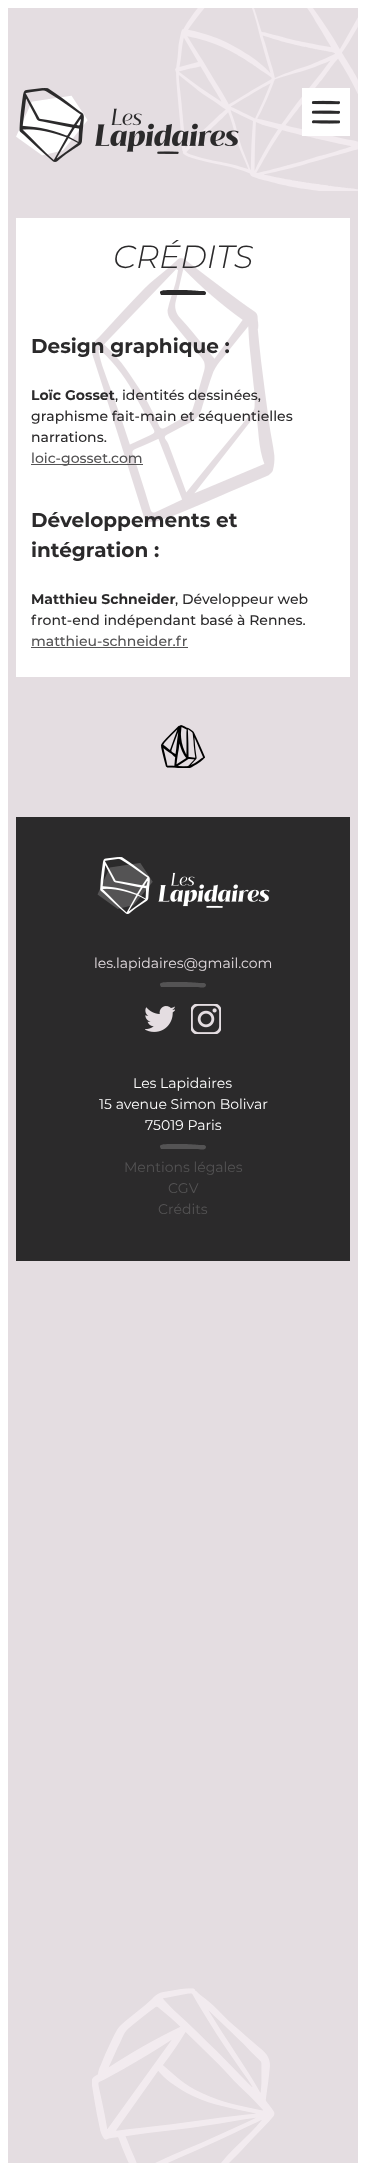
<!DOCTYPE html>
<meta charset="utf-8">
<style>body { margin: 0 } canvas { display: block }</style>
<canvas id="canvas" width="366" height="2171"></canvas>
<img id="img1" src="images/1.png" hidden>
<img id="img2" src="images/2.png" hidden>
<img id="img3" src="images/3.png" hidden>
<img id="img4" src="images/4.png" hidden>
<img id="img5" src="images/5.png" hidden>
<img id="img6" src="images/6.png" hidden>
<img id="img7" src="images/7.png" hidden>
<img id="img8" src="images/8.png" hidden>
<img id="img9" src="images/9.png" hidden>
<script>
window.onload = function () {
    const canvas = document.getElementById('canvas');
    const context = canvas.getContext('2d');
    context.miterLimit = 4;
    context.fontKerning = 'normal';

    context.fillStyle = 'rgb(228, 221, 225)';
    context.fillRect(0, 0, 366, 2171);
    context.fillStyle = 'rgb(255, 255, 255)';
    context.fillRect(0, 0, 366, 8);
    context.fillRect(358, 0, 8, 2171);
    context.fillRect(0, 2163, 366, 8);
    context.fillRect(0, 0, 8, 2171);
    context.drawImage(document.getElementById('img1'), 175, 8, 183, 183);
    context.drawImage(document.getElementById('img2'), 16, 88, 223, 74);
    context.fillRect(302, 88, 48, 48);
    context.drawImage(document.getElementById('img3'), 311, 100, 29, 24);
    context.fillRect(16, 218, 334, 459);
    context.drawImage(document.getElementById('img4'), 92, 258, 183, 264);
    context.save();
    context.beginPath();
    context.rect(160, 290, 46, 5);
    context.clip();
    context.fillStyle = 'rgb(43, 42, 43)';
    context.beginPath();
    context.moveTo(206, 293);
    context.bezierCurveTo(206, 292, 205, 291, 204, 291);
    context.lineTo(199, 291);
    context.bezierCurveTo(193, 290, 164, 289, 161, 291);
    context.bezierCurveTo(160, 291, 160, 292, 160, 293);
    context.lineTo(161, 295);
    context.lineTo(197, 295);
    context.bezierCurveTo(199, 295, 206, 297, 206, 293);
    context.closePath();
    context.fill();
    context.restore();
    context.fillStyle = 'rgb(84, 83, 84)';
    context.fillRect(31, 464, 112, 1);
    context.fillRect(31, 647, 157, 1);
    context.drawImage(document.getElementById('img5'), 161, 725, 44, 43);
    context.fillStyle = 'rgb(43, 42, 43)';
    context.fillRect(16, 817, 334, 444);
    context.drawImage(document.getElementById('img6'), 97, 857, 173, 57);
    context.save();
    context.beginPath();
    context.rect(160, 982, 46, 6);
    context.clip();
    context.fillStyle = 'rgb(84, 83, 84)';
    context.beginPath();
    context.moveTo(206, 985);
    context.bezierCurveTo(206, 984, 205, 983, 204, 983);
    context.lineTo(199, 983);
    context.bezierCurveTo(193, 982, 164, 981, 161, 983);
    context.bezierCurveTo(160, 983, 160, 984, 160, 985);
    context.lineTo(161, 987);
    context.lineTo(197, 987);
    context.bezierCurveTo(199, 987, 206, 989, 206, 985);
    context.closePath();
    context.fill();
    context.restore();
    context.drawImage(document.getElementById('img7'), 145, 1006, 30, 26);
    context.drawImage(document.getElementById('img8'), 191, 1004, 30, 30);
    context.save();
    context.beginPath();
    context.rect(160, 1144, 46, 6);
    context.clip();
    context.fillStyle = 'rgb(84, 83, 84)';
    context.beginPath();
    context.moveTo(206, 1147);
    context.bezierCurveTo(206, 1146, 205, 1145, 204, 1145);
    context.lineTo(199, 1145);
    context.bezierCurveTo(193, 1144, 164, 1143, 161, 1145);
    context.bezierCurveTo(160, 1145, 160, 1146, 160, 1147);
    context.lineTo(161, 1149);
    context.lineTo(197, 1149);
    context.bezierCurveTo(199, 1149, 206, 1151, 206, 1147);
    context.closePath();
    context.fill();
    context.restore();
    context.drawImage(document.getElementById('img9'), 92, 1988, 183, 175);
    context.font = 'italic 300 32px Montserrat';
    context.fillText('CRÉDITS', 113, 268);
    context.font = 'bold 20px Montserrat';
    context.fillText('Design graphique :', 31, 353);
    context.font = 'bold 14px Montserrat';
    context.fillText('Loïc Gosset', 31, 400);
    context.font = '500 14px Montserrat';
    context.fillText(', identités dessinées,', 115, 400);
    context.fillText('graphisme fait-main et séquentielles', 31, 421);
    context.fillText('narrations.', 31, 442);
    context.fillStyle = 'rgb(84, 83, 84)';
    context.fillText('loic-gosset.com', 31, 463);
    context.font = 'bold 20px Montserrat';
    context.fillStyle = 'rgb(43, 42, 43)';
    context.fillText('Développements et', 31, 527);
    context.fillText('intégration :', 31, 557);
    context.font = 'bold 14px Montserrat';
    context.fillText('Matthieu Schneider', 31, 604);
    context.font = '500 14px Montserrat';
    context.fillText(', Développeur web', 175, 604);
    context.fillText('front-end indépendant basé à Rennes.', 31, 625);
    context.fillStyle = 'rgb(84, 83, 84)';
    context.fillText('matthieu-schneider.fr', 31, 646);
    context.font = '14px Montserrat';
    context.fillStyle = 'rgb(228, 221, 225)';
    context.fillText('les.lapidaires@gmail.com', 94, 968);
    context.fillStyle = 'rgb(255, 255, 255)';
    context.fillText('Les Lapidaires', 133, 1088);
    context.fillText('15 avenue Simon Bolivar', 99, 1109);
    context.fillText('75019 Paris', 145, 1130);
    context.fillStyle = 'rgb(84, 83, 84)';
    context.fillText('Mentions légales', 124, 1172);
    context.fillText('CGV', 168, 1193);
    context.fillText('Crédits', 158, 1214);
};
</script>
